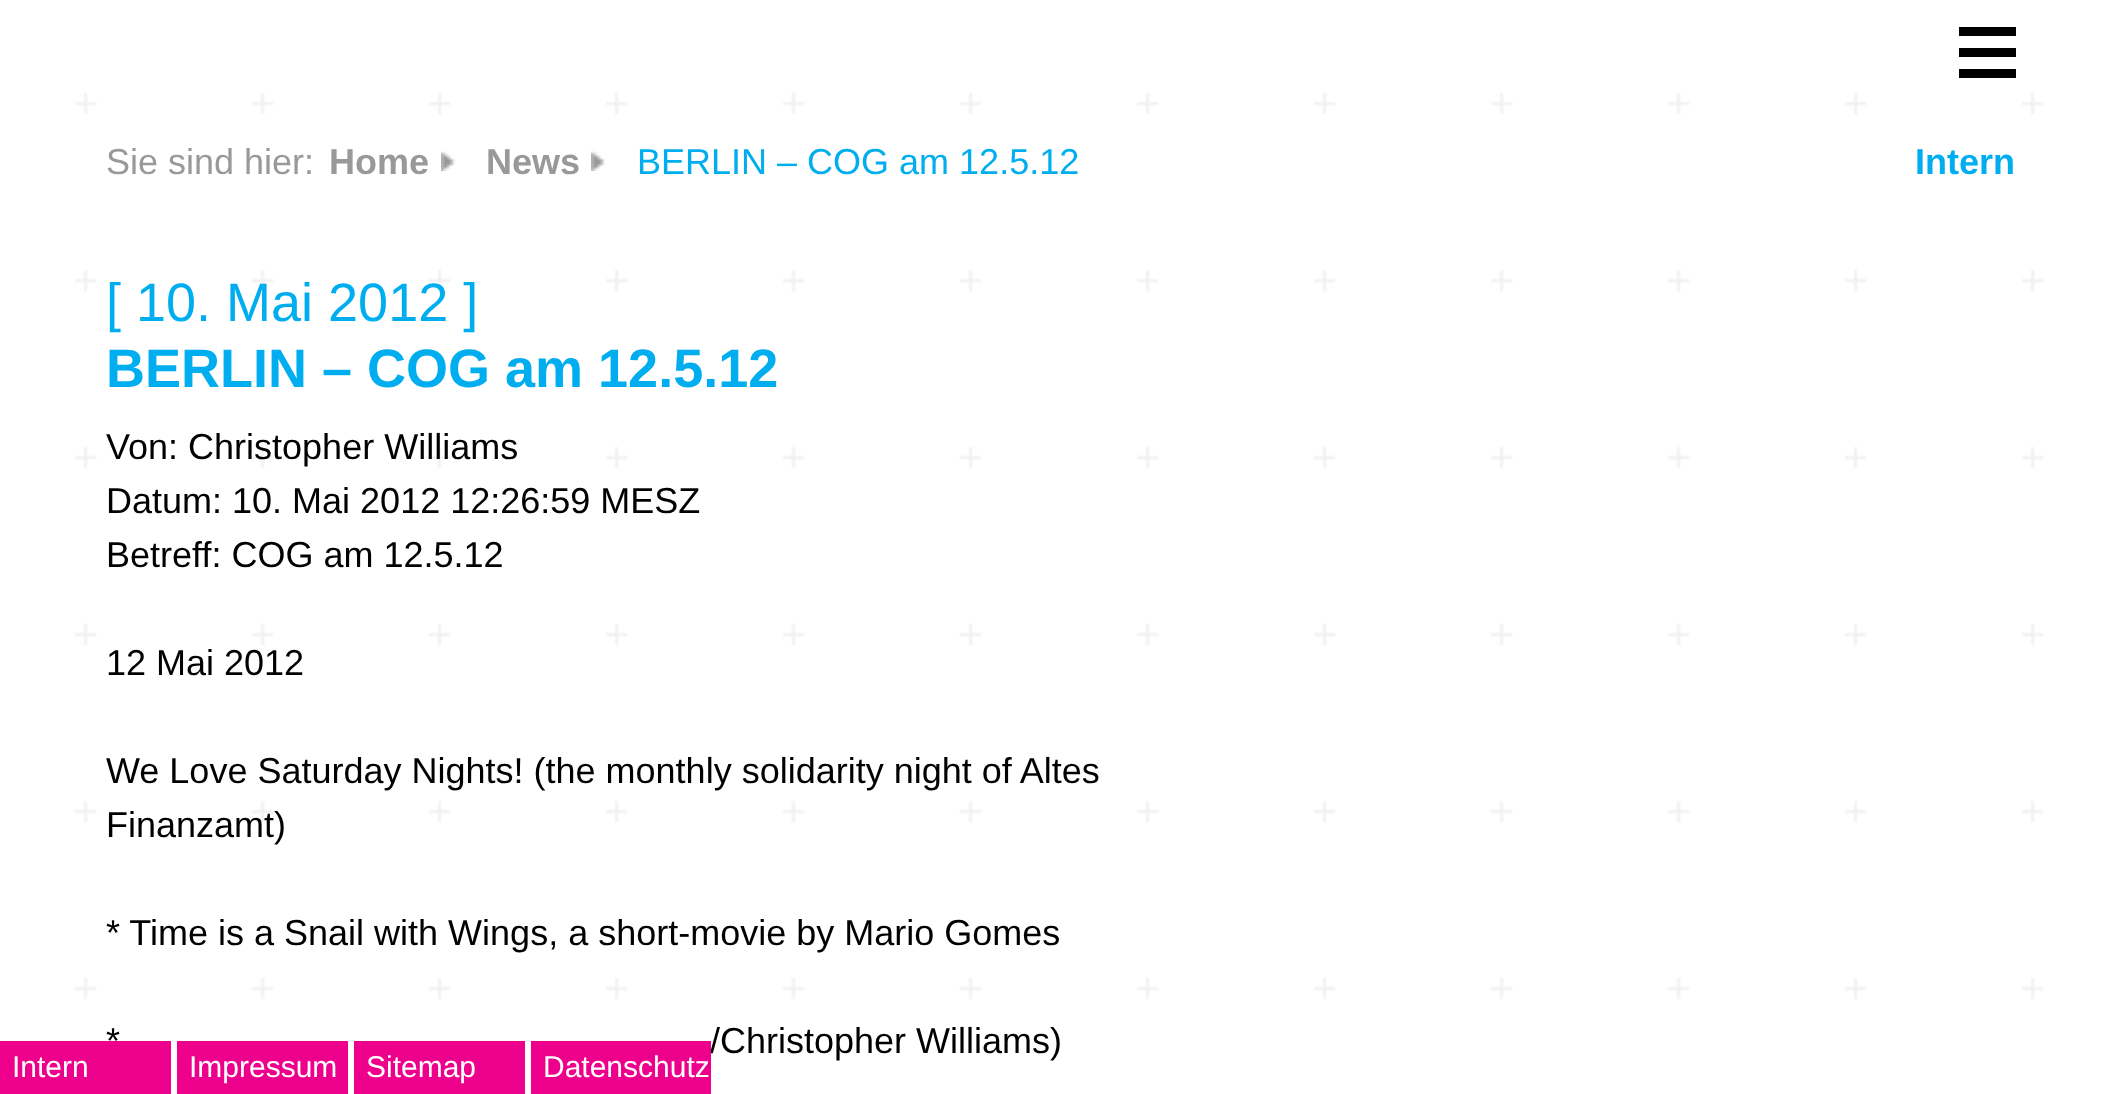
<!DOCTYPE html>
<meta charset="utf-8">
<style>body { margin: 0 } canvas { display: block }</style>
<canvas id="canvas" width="2121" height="1094"></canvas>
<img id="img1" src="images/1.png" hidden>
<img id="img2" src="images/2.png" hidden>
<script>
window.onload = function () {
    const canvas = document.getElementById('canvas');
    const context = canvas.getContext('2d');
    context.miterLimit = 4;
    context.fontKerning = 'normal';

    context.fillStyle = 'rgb(255, 255, 255)';
    context.fillRect(0, 0, 2121, 1094);
    context.drawImage(document.getElementById('img1'), 74, 92, 1971, 908);
    context.fillStyle = 'rgb(0, 0, 0)';
    context.fillRect(1959, 27, 57, 9);
    context.fillRect(1959, 48, 57, 9);
    context.fillRect(1959, 69, 57, 9);
    context.drawImage(document.getElementById('img2'), 441, 150, 15, 21);
    context.drawImage(document.getElementById('img2'), 591, 150, 15, 21);
    context.fillStyle = 'rgb(237, 0, 140)';
    context.fillRect(0, 1041, 171, 53);
    context.fillRect(177, 1041, 171, 53);
    context.fillRect(354, 1041, 171, 53);
    context.font = '36px Liberation Sans';
    context.fillStyle = 'rgb(153, 153, 153)';
    context.fillText('Sie sind hier:', 106, 174);
    context.font = 'bold 36px Liberation Sans';
    context.fillText('Home', 329, 174);
    context.fillText('News', 486, 174);
    context.font = '36px Liberation Sans';
    context.fillStyle = 'rgb(0, 174, 240)';
    context.fillText('BERLIN – COG am 12.5.12', 637, 174);
    context.font = 'bold 36px Liberation Sans';
    context.fillText('Intern', 1915, 174);
    context.font = '54px Liberation Sans';
    context.fillText('[ 10. Mai 2012 ]', 106, 321);
    context.font = 'bold 54px Liberation Sans';
    context.fillText('BERLIN – COG am 12.5.12', 106, 387);
    context.font = '36px Liberation Sans';
    context.fillStyle = 'rgb(1, 1, 1)';
    context.fillText('Von: Christopher Williams', 106, 459);
    context.fillText('Datum: 10. Mai 2012 12:26:59 MESZ', 106, 513);
    context.fillText('Betreff: COG am 12.5.12', 106, 567);
    context.fillText('12 Mai 2012', 106, 675);
    context.fillText('We Love Saturday Nights! (the monthly solidarity night of Altes', 106, 783);
    context.fillText('Finanzamt)', 106, 837);
    context.fillText('* Time is a Snail with Wings, a short-movie by Mario Gomes', 106, 945);
    context.fillText('*', 106, 1053);
    context.fillText('/Christopher Williams)', 710, 1053);
    context.font = '30px Liberation Sans';
    context.fillStyle = 'rgb(255, 255, 255)';
    context.fillText('Intern', 12, 1077);
    context.fillText('Impressum', 189, 1077);
    context.fillText('Sitemap', 366, 1077);
    context.fillStyle = 'rgb(237, 0, 140)';
    context.fillRect(531, 1041, 180, 53);
    context.fillStyle = 'rgb(255, 255, 255)';
    context.fillText('Datenschutz', 543, 1077);
};
</script>
